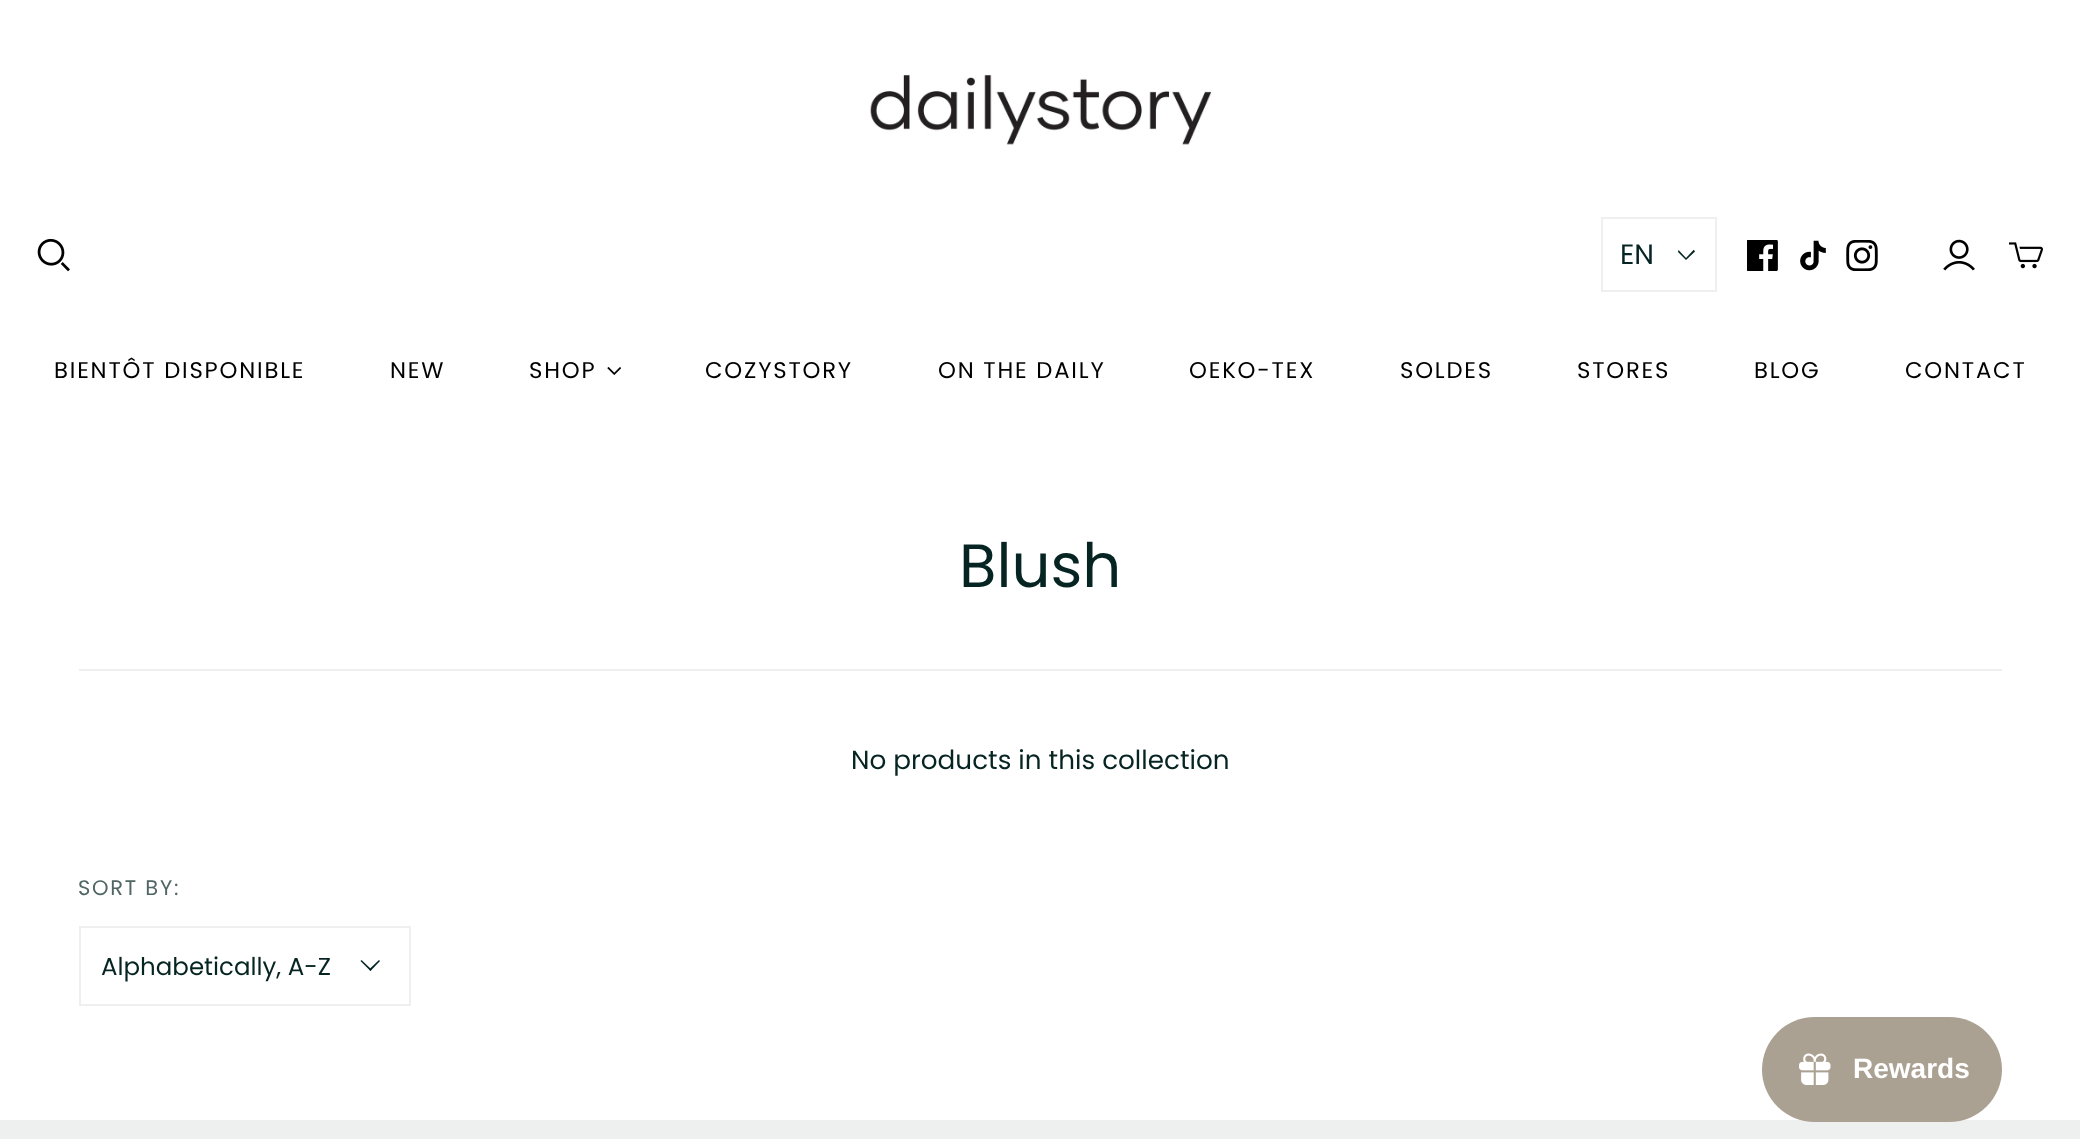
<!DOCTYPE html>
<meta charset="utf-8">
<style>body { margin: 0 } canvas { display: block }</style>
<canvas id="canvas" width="2080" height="1139"></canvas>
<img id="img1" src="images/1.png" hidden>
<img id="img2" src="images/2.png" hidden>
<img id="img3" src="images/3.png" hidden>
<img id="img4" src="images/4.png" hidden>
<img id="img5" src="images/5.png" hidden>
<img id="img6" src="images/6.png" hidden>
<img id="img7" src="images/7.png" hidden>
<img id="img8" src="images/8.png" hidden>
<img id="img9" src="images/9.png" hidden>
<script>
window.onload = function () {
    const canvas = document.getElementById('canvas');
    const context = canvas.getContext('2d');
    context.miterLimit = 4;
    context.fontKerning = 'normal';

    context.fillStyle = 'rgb(255, 255, 255)';
    context.fillRect(0, 0, 2080, 1139);
    context.drawImage(document.getElementById('img1'), 870, 74, 342, 71);
    context.drawImage(document.getElementById('img2'), 37, 238, 33, 34);
    context.strokeStyle = 'rgb(239, 239, 239)';
    context.lineWidth = 2;
    context.strokeRect(1602, 218, 114, 73);
    context.fillStyle = 'rgb(5, 36, 34)';
    context.beginPath();
    context.moveTo(1686, 258);
    context.lineTo(1678.5, 250);
    context.lineTo(1678, 252);
    context.lineTo(1686, 260);
    context.lineTo(1695, 251.5);
    context.lineTo(1694, 250);
    context.lineTo(1693.5, 250);
    context.closePath();
    context.fill();
    context.drawImage(document.getElementById('img3'), 1747, 240, 31, 31);
    context.drawImage(document.getElementById('img4'), 1800, 240, 26, 31);
    context.drawImage(document.getElementById('img5'), 1846, 240, 32, 31);
    context.drawImage(document.getElementById('img6'), 1943, 239, 32, 32);
    context.drawImage(document.getElementById('img7'), 2009, 242, 34, 27);
    context.drawImage(document.getElementById('img8'), 607, 367, 14, 8);
    context.fillStyle = 'rgb(239, 239, 239)';
    context.fillRect(79, 669, 1923, 2);
    context.strokeRect(80, 927, 330, 78);
    context.fillStyle = 'rgb(5, 36, 34)';
    context.beginPath();
    context.moveTo(369, 969.5);
    context.lineTo(379, 960);
    context.lineTo(380, 961);
    context.lineTo(370.5, 971);
    context.closePath();
    context.fill();
    context.beginPath();
    context.moveTo(360.5, 961);
    context.lineTo(361.5, 960);
    context.lineTo(371.5, 969.5);
    context.lineTo(370.5, 971);
    context.closePath();
    context.fill();
    context.fillStyle = 'rgb(238, 240, 240)';
    context.fillRect(0, 1120, 2080, 19);
    context.fillStyle = 'rgb(171, 161, 147)';
    context.beginPath();
    context.roundRect(1762, 1017, 240, 105, 52.5);
    context.fill();
    context.drawImage(document.getElementById('img9'), 1799, 1053, 32, 32);
    context.font = '28px Poppins';
    context.fillStyle = 'rgb(5, 36, 34)';
    context.fillText('EN', 1620, 264);
    context.letterSpacing = '1.8px';
    context.font = '22.75px Poppins';
    context.fillStyle = 'rgb(0, 0, 0)';
    context.fillText('BIENTÔT DISPONIBLE', 54, 378);
    context.fillText('NEW', 390, 378);
    context.fillText('SHOP', 529, 378);
    context.fillText('COZYSTORY', 705, 378);
    context.fillText('ON THE DAILY', 938, 378);
    context.fillText('OEKO-TEX', 1189, 378);
    context.fillText('SOLDES', 1400, 378);
    context.fillText('STORES', 1577, 378);
    context.fillText('BLOG', 1754, 378);
    context.fillText('CONTACT', 1905, 378);
    context.letterSpacing = '0px';
    context.font = '61px Poppins';
    context.fillStyle = 'rgb(5, 36, 34)';
    context.fillText('Blush', 959, 587);
    context.font = '26.25px Poppins';
    context.fillText('No products in this collection', 851, 769);
    context.letterSpacing = '1.75px';
    context.font = '21px Poppins';
    context.fillStyle = 'rgb(80, 102, 100)';
    context.fillText('SORT BY:', 78, 895);
    context.letterSpacing = '0px';
    context.font = '24.5px Poppins';
    context.fillStyle = 'rgb(5, 36, 34)';
    context.fillText('Alphabetically, A-Z', 101, 975);
    context.font = 'bold 28px Liberation Sans';
    context.fillStyle = 'rgb(255, 255, 255)';
    context.fillText('Rewards', 1853, 1078);
};
</script>
